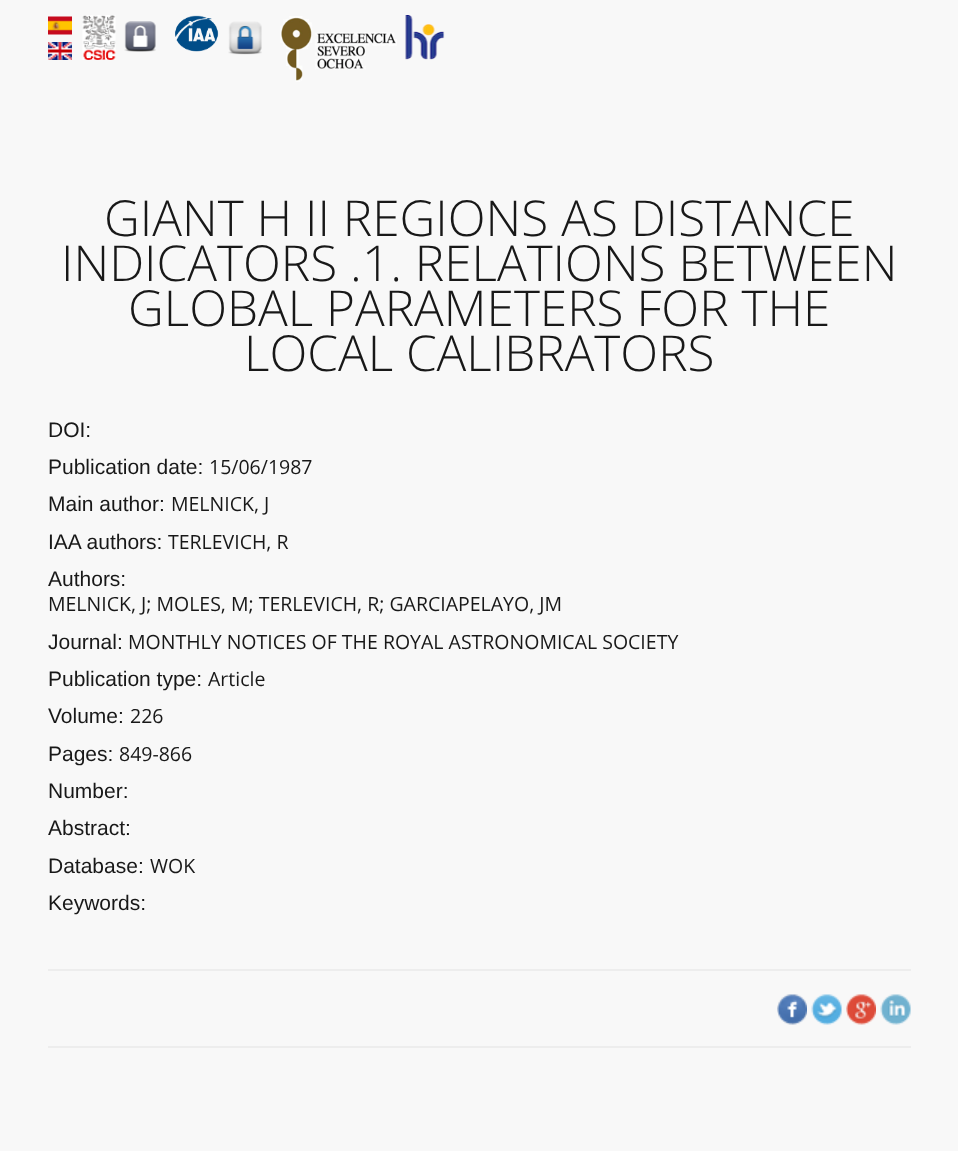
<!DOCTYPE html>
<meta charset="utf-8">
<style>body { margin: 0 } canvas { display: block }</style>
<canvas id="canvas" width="958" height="1151"></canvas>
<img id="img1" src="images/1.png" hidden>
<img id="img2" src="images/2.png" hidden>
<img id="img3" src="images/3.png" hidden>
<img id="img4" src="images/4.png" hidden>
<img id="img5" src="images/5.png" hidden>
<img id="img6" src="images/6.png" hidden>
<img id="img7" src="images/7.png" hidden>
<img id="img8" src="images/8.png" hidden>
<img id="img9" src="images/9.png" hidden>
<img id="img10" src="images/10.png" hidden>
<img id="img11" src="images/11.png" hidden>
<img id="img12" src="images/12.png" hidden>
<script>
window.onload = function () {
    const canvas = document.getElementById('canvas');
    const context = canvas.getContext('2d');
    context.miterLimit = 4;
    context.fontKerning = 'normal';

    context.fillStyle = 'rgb(248, 248, 248)';
    context.fillRect(0, 0, 958, 1151);
    context.drawImage(document.getElementById('img1'), 48, 16, 24, 19);
    context.drawImage(document.getElementById('img2'), 48, 42, 24, 18);
    context.drawImage(document.getElementById('img3'), 82, 15, 34, 45);
    context.drawImage(document.getElementById('img4'), 124, 21, 32, 31);
    context.drawImage(document.getElementById('img5'), 175, 15, 44, 37);
    context.drawImage(document.getElementById('img6'), 228, 21, 34, 34);
    context.drawImage(document.getElementById('img7'), 280, 16, 117, 66);
    context.drawImage(document.getElementById('img8'), 405, 15, 40, 45);
    context.fillStyle = 'rgb(237, 237, 237)';
    context.fillRect(48, 969, 863, 2);
    context.fillRect(48, 1046, 863, 2);
    context.drawImage(document.getElementById('img9'), 777, 994, 30, 31);
    context.drawImage(document.getElementById('img10'), 811, 994, 31, 31);
    context.drawImage(document.getElementById('img11'), 846, 994, 30, 31);
    context.drawImage(document.getElementById('img12'), 880, 994, 31, 31);
    context.font = '300 49.5px Open Sans';
    context.fillStyle = 'rgb(24, 24, 24)';
    context.fillText('GIANT H II REGIONS AS DISTANCE', 104, 236);
    context.fillText('INDICATORS .1. RELATIONS BETWEEN', 61, 281);
    context.fillText('GLOBAL PARAMETERS FOR THE', 128, 326);
    context.fillText('LOCAL CALIBRATORS', 244, 371);
    context.font = '21px Liberation Sans';
    context.fillText('DOI:', 48, 437);
    context.fillText('Publication date:', 48, 474);
    context.font = '19.5px Open Sans';
    context.fillText('15/06/1987', 209, 474);
    context.font = '21px Liberation Sans';
    context.fillText('Main author:', 48, 511);
    context.font = '19.5px Open Sans';
    context.fillText('MELNICK, J', 171, 511);
    context.font = '21px Liberation Sans';
    context.fillText('IAA authors:', 48, 549);
    context.font = '19.5px Open Sans';
    context.fillText('TERLEVICH, R', 168, 549);
    context.font = '21px Liberation Sans';
    context.fillText('Authors:', 48, 586);
    context.font = '19.5px Open Sans';
    context.fillText('MELNICK, J; MOLES, M; TERLEVICH, R; GARCIAPELAYO, JM', 48, 611);
    context.font = '21px Liberation Sans';
    context.fillText('Journal:', 48, 649);
    context.font = '19.5px Open Sans';
    context.fillText('MONTHLY NOTICES OF THE ROYAL ASTRONOMICAL SOCIETY', 128, 649);
    context.font = '21px Liberation Sans';
    context.fillText('Publication type:', 48, 686);
    context.font = '19.5px Open Sans';
    context.fillText('Article', 208, 686);
    context.font = '21px Liberation Sans';
    context.fillText('Volume:', 48, 723);
    context.font = '19.5px Open Sans';
    context.fillText('226', 130, 723);
    context.font = '21px Liberation Sans';
    context.fillText('Pages:', 48, 761);
    context.font = '19.5px Open Sans';
    context.fillText('849-866', 119, 761);
    context.font = '21px Liberation Sans';
    context.fillText('Number:', 48, 798);
    context.fillText('Abstract:', 48, 835);
    context.fillText('Database:', 48, 873);
    context.font = '19.5px Open Sans';
    context.fillText('WOK', 150, 873);
    context.font = '21px Liberation Sans';
    context.fillText('Keywords:', 48, 910);
};
</script>
